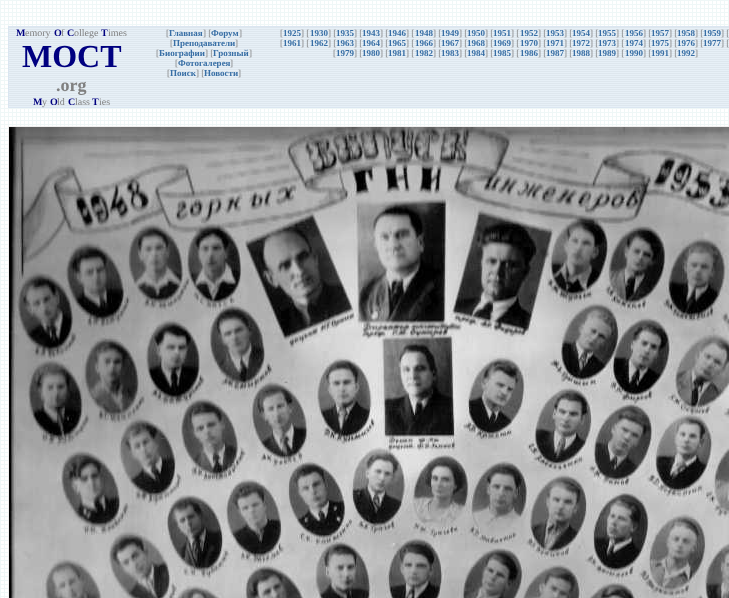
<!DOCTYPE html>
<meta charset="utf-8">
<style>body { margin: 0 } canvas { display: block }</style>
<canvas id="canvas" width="729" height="598"></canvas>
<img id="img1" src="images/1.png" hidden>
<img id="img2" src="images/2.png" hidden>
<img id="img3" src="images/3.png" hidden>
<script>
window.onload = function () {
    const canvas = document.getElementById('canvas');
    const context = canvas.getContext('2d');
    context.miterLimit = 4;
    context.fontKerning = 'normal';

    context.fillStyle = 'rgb(255, 255, 255)';
    context.fillRect(0, 0, 729, 598);
    context.drawImage(document.getElementById('img1'), 0, 0, 729, 598);
    context.drawImage(document.getElementById('img2'), 9, 27, 720, 80);
    context.strokeStyle = 'rgb(219, 230, 241)';
    context.strokeRect(8.5, 26.5, 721, 81);
    context.fillStyle = 'rgb(238, 238, 238)';
    context.fillRect(8, 126, 721, 1);
    context.fillRect(8, 126, 1, 472);
    context.drawImage(document.getElementById('img3'), 9, 127, 720, 471);
    context.font = 'bold 10px Liberation Serif';
    context.fillStyle = 'rgb(0, 0, 128)';
    context.fillText('M', 16, 36);
    context.font = '10px Liberation Serif';
    context.fillStyle = 'rgb(128, 128, 128)';
    context.fillText('emory', 25, 36);
    context.font = 'bold 10px Liberation Serif';
    context.fillStyle = 'rgb(0, 0, 128)';
    context.fillText('O', 54, 36);
    context.font = '10px Liberation Serif';
    context.fillStyle = 'rgb(128, 128, 128)';
    context.fillText('f', 61, 36);
    context.font = 'bold 10px Liberation Serif';
    context.fillStyle = 'rgb(0, 0, 128)';
    context.fillText('C', 67, 36);
    context.font = '10px Liberation Serif';
    context.fillStyle = 'rgb(128, 128, 128)';
    context.fillText('ollege', 74, 36);
    context.font = 'bold 10px Liberation Serif';
    context.fillStyle = 'rgb(0, 0, 128)';
    context.fillText('T', 101, 36);
    context.font = '10px Liberation Serif';
    context.fillStyle = 'rgb(128, 128, 128)';
    context.fillText('imes', 108, 36);
    context.font = 'bold 32px Liberation Serif';
    context.fillStyle = 'rgb(0, 0, 128)';
    context.fillText('MOCT', 22, 67);
    context.font = 'bold 18px Liberation Serif';
    context.fillStyle = 'rgb(128, 128, 128)';
    context.fillText('.org', 56, 91);
    context.font = 'bold 10px Liberation Serif';
    context.fillStyle = 'rgb(0, 0, 128)';
    context.fillText('M', 33, 105);
    context.font = '10px Liberation Serif';
    context.fillStyle = 'rgb(128, 128, 128)';
    context.fillText('y', 42, 105);
    context.font = 'bold 10px Liberation Serif';
    context.fillStyle = 'rgb(0, 0, 128)';
    context.fillText('O', 50, 105);
    context.font = '10px Liberation Serif';
    context.fillStyle = 'rgb(128, 128, 128)';
    context.fillText('ld', 57, 105);
    context.font = 'bold 10px Liberation Serif';
    context.fillStyle = 'rgb(0, 0, 128)';
    context.fillText('C', 68, 105);
    context.font = '10px Liberation Serif';
    context.fillStyle = 'rgb(128, 128, 128)';
    context.fillText('lass', 75, 105);
    context.font = 'bold 10px Liberation Serif';
    context.fillStyle = 'rgb(0, 0, 128)';
    context.fillText('T', 92, 105);
    context.font = '10px Liberation Serif';
    context.fillStyle = 'rgb(128, 128, 128)';
    context.fillText('ies', 99, 105);
    context.font = '9px Liberation Serif';
    context.fillText('[', 166, 36);
    context.font = 'bold 9px Liberation Serif';
    context.fillStyle = 'rgb(55, 110, 165)';
    context.fillText('Главная', 169, 36);
    context.font = '9px Liberation Serif';
    context.fillStyle = 'rgb(128, 128, 128)';
    context.fillText('] [', 203, 36);
    context.font = 'bold 9px Liberation Serif';
    context.fillStyle = 'rgb(55, 110, 165)';
    context.fillText('Форум', 211, 36);
    context.font = '9px Liberation Serif';
    context.fillStyle = 'rgb(128, 128, 128)';
    context.fillText(']', 239, 36);
    context.fillText('[', 170, 46);
    context.font = 'bold 9px Liberation Serif';
    context.fillStyle = 'rgb(55, 110, 165)';
    context.fillText('Преподаватели', 173, 46);
    context.font = '9px Liberation Serif';
    context.fillStyle = 'rgb(128, 128, 128)';
    context.fillText(']', 235, 46);
    context.fillText('[', 156, 56);
    context.font = 'bold 9px Liberation Serif';
    context.fillStyle = 'rgb(55, 110, 165)';
    context.fillText('Биографии', 159, 56);
    context.font = '9px Liberation Serif';
    context.fillStyle = 'rgb(128, 128, 128)';
    context.fillText('] [', 205, 56);
    context.font = 'bold 9px Liberation Serif';
    context.fillStyle = 'rgb(55, 110, 165)';
    context.fillText('Грозный', 213, 56);
    context.font = '9px Liberation Serif';
    context.fillStyle = 'rgb(128, 128, 128)';
    context.fillText(']', 249, 56);
    context.fillText('[', 175, 66);
    context.font = 'bold 9px Liberation Serif';
    context.fillStyle = 'rgb(55, 110, 165)';
    context.fillText('Фотогалерея', 178, 66);
    context.font = '9px Liberation Serif';
    context.fillStyle = 'rgb(128, 128, 128)';
    context.fillText(']', 230, 66);
    context.fillText('[', 167, 76);
    context.font = 'bold 9px Liberation Serif';
    context.fillStyle = 'rgb(55, 110, 165)';
    context.fillText('Поиск', 170, 76);
    context.font = '9px Liberation Serif';
    context.fillStyle = 'rgb(128, 128, 128)';
    context.fillText('] [', 196, 76);
    context.font = 'bold 9px Liberation Serif';
    context.fillStyle = 'rgb(55, 110, 165)';
    context.fillText('Новости', 204, 76);
    context.font = '9px Liberation Serif';
    context.fillStyle = 'rgb(128, 128, 128)';
    context.fillText(']', 238, 76);
    context.fillText('[', 280, 36);
    context.font = 'bold 9px Liberation Serif';
    context.fillStyle = 'rgb(55, 110, 165)';
    context.fillText('1925', 283, 36);
    context.font = '9px Liberation Serif';
    context.fillStyle = 'rgb(128, 128, 128)';
    context.fillText('] [', 301, 36);
    context.font = 'bold 9px Liberation Serif';
    context.fillStyle = 'rgb(55, 110, 165)';
    context.fillText('1930', 310, 36);
    context.font = '9px Liberation Serif';
    context.fillStyle = 'rgb(128, 128, 128)';
    context.fillText('] [', 328, 36);
    context.font = 'bold 9px Liberation Serif';
    context.fillStyle = 'rgb(55, 110, 165)';
    context.fillText('1935', 336, 36);
    context.font = '9px Liberation Serif';
    context.fillStyle = 'rgb(128, 128, 128)';
    context.fillText('] [', 354, 36);
    context.font = 'bold 9px Liberation Serif';
    context.fillStyle = 'rgb(55, 110, 165)';
    context.fillText('1943', 362, 36);
    context.font = '9px Liberation Serif';
    context.fillStyle = 'rgb(128, 128, 128)';
    context.fillText('] [', 380, 36);
    context.font = 'bold 9px Liberation Serif';
    context.fillStyle = 'rgb(55, 110, 165)';
    context.fillText('1946', 388, 36);
    context.font = '9px Liberation Serif';
    context.fillStyle = 'rgb(128, 128, 128)';
    context.fillText('] [', 406, 36);
    context.font = 'bold 9px Liberation Serif';
    context.fillStyle = 'rgb(55, 110, 165)';
    context.fillText('1948', 415, 36);
    context.font = '9px Liberation Serif';
    context.fillStyle = 'rgb(128, 128, 128)';
    context.fillText('] [', 433, 36);
    context.font = 'bold 9px Liberation Serif';
    context.fillStyle = 'rgb(55, 110, 165)';
    context.fillText('1949', 441, 36);
    context.font = '9px Liberation Serif';
    context.fillStyle = 'rgb(128, 128, 128)';
    context.fillText('] [', 459, 36);
    context.font = 'bold 9px Liberation Serif';
    context.fillStyle = 'rgb(55, 110, 165)';
    context.fillText('1950', 467, 36);
    context.font = '9px Liberation Serif';
    context.fillStyle = 'rgb(128, 128, 128)';
    context.fillText('] [', 485, 36);
    context.font = 'bold 9px Liberation Serif';
    context.fillStyle = 'rgb(55, 110, 165)';
    context.fillText('1951', 493, 36);
    context.font = '9px Liberation Serif';
    context.fillStyle = 'rgb(128, 128, 128)';
    context.fillText('] [', 511, 36);
    context.font = 'bold 9px Liberation Serif';
    context.fillStyle = 'rgb(55, 110, 165)';
    context.fillText('1952', 520, 36);
    context.font = '9px Liberation Serif';
    context.fillStyle = 'rgb(128, 128, 128)';
    context.fillText('] [', 538, 36);
    context.font = 'bold 9px Liberation Serif';
    context.fillStyle = 'rgb(55, 110, 165)';
    context.fillText('1953', 546, 36);
    context.font = '9px Liberation Serif';
    context.fillStyle = 'rgb(128, 128, 128)';
    context.fillText('] [', 564, 36);
    context.font = 'bold 9px Liberation Serif';
    context.fillStyle = 'rgb(55, 110, 165)';
    context.fillText('1954', 572, 36);
    context.font = '9px Liberation Serif';
    context.fillStyle = 'rgb(128, 128, 128)';
    context.fillText('] [', 590, 36);
    context.font = 'bold 9px Liberation Serif';
    context.fillStyle = 'rgb(55, 110, 165)';
    context.fillText('1955', 598, 36);
    context.font = '9px Liberation Serif';
    context.fillStyle = 'rgb(128, 128, 128)';
    context.fillText('] [', 616, 36);
    context.font = 'bold 9px Liberation Serif';
    context.fillStyle = 'rgb(55, 110, 165)';
    context.fillText('1956', 625, 36);
    context.font = '9px Liberation Serif';
    context.fillStyle = 'rgb(128, 128, 128)';
    context.fillText('] [', 643, 36);
    context.font = 'bold 9px Liberation Serif';
    context.fillStyle = 'rgb(55, 110, 165)';
    context.fillText('1957', 651, 36);
    context.font = '9px Liberation Serif';
    context.fillStyle = 'rgb(128, 128, 128)';
    context.fillText('] [', 669, 36);
    context.font = 'bold 9px Liberation Serif';
    context.fillStyle = 'rgb(55, 110, 165)';
    context.fillText('1958', 677, 36);
    context.font = '9px Liberation Serif';
    context.fillStyle = 'rgb(128, 128, 128)';
    context.fillText('] [', 695, 36);
    context.font = 'bold 9px Liberation Serif';
    context.fillStyle = 'rgb(55, 110, 165)';
    context.fillText('1959', 703, 36);
    context.font = '9px Liberation Serif';
    context.fillStyle = 'rgb(128, 128, 128)';
    context.fillText('] [', 721, 36);
    context.fillText('[', 280, 46);
    context.font = 'bold 9px Liberation Serif';
    context.fillStyle = 'rgb(55, 110, 165)';
    context.fillText('1961', 283, 46);
    context.font = '9px Liberation Serif';
    context.fillStyle = 'rgb(128, 128, 128)';
    context.fillText('] [', 301, 46);
    context.font = 'bold 9px Liberation Serif';
    context.fillStyle = 'rgb(55, 110, 165)';
    context.fillText('1962', 310, 46);
    context.font = '9px Liberation Serif';
    context.fillStyle = 'rgb(128, 128, 128)';
    context.fillText('] [', 328, 46);
    context.font = 'bold 9px Liberation Serif';
    context.fillStyle = 'rgb(55, 110, 165)';
    context.fillText('1963', 336, 46);
    context.font = '9px Liberation Serif';
    context.fillStyle = 'rgb(128, 128, 128)';
    context.fillText('] [', 354, 46);
    context.font = 'bold 9px Liberation Serif';
    context.fillStyle = 'rgb(55, 110, 165)';
    context.fillText('1964', 362, 46);
    context.font = '9px Liberation Serif';
    context.fillStyle = 'rgb(128, 128, 128)';
    context.fillText('] [', 380, 46);
    context.font = 'bold 9px Liberation Serif';
    context.fillStyle = 'rgb(55, 110, 165)';
    context.fillText('1965', 388, 46);
    context.font = '9px Liberation Serif';
    context.fillStyle = 'rgb(128, 128, 128)';
    context.fillText('] [', 406, 46);
    context.font = 'bold 9px Liberation Serif';
    context.fillStyle = 'rgb(55, 110, 165)';
    context.fillText('1966', 415, 46);
    context.font = '9px Liberation Serif';
    context.fillStyle = 'rgb(128, 128, 128)';
    context.fillText('] [', 433, 46);
    context.font = 'bold 9px Liberation Serif';
    context.fillStyle = 'rgb(55, 110, 165)';
    context.fillText('1967', 441, 46);
    context.font = '9px Liberation Serif';
    context.fillStyle = 'rgb(128, 128, 128)';
    context.fillText('] [', 459, 46);
    context.font = 'bold 9px Liberation Serif';
    context.fillStyle = 'rgb(55, 110, 165)';
    context.fillText('1968', 467, 46);
    context.font = '9px Liberation Serif';
    context.fillStyle = 'rgb(128, 128, 128)';
    context.fillText('] [', 485, 46);
    context.font = 'bold 9px Liberation Serif';
    context.fillStyle = 'rgb(55, 110, 165)';
    context.fillText('1969', 493, 46);
    context.font = '9px Liberation Serif';
    context.fillStyle = 'rgb(128, 128, 128)';
    context.fillText('] [', 511, 46);
    context.font = 'bold 9px Liberation Serif';
    context.fillStyle = 'rgb(55, 110, 165)';
    context.fillText('1970', 520, 46);
    context.font = '9px Liberation Serif';
    context.fillStyle = 'rgb(128, 128, 128)';
    context.fillText('] [', 538, 46);
    context.font = 'bold 9px Liberation Serif';
    context.fillStyle = 'rgb(55, 110, 165)';
    context.fillText('1971', 546, 46);
    context.font = '9px Liberation Serif';
    context.fillStyle = 'rgb(128, 128, 128)';
    context.fillText('] [', 564, 46);
    context.font = 'bold 9px Liberation Serif';
    context.fillStyle = 'rgb(55, 110, 165)';
    context.fillText('1972', 572, 46);
    context.font = '9px Liberation Serif';
    context.fillStyle = 'rgb(128, 128, 128)';
    context.fillText('] [', 590, 46);
    context.font = 'bold 9px Liberation Serif';
    context.fillStyle = 'rgb(55, 110, 165)';
    context.fillText('1973', 598, 46);
    context.font = '9px Liberation Serif';
    context.fillStyle = 'rgb(128, 128, 128)';
    context.fillText('] [', 616, 46);
    context.font = 'bold 9px Liberation Serif';
    context.fillStyle = 'rgb(55, 110, 165)';
    context.fillText('1974', 625, 46);
    context.font = '9px Liberation Serif';
    context.fillStyle = 'rgb(128, 128, 128)';
    context.fillText('] [', 643, 46);
    context.font = 'bold 9px Liberation Serif';
    context.fillStyle = 'rgb(55, 110, 165)';
    context.fillText('1975', 651, 46);
    context.font = '9px Liberation Serif';
    context.fillStyle = 'rgb(128, 128, 128)';
    context.fillText('] [', 669, 46);
    context.font = 'bold 9px Liberation Serif';
    context.fillStyle = 'rgb(55, 110, 165)';
    context.fillText('1976', 677, 46);
    context.font = '9px Liberation Serif';
    context.fillStyle = 'rgb(128, 128, 128)';
    context.fillText('] [', 695, 46);
    context.font = 'bold 9px Liberation Serif';
    context.fillStyle = 'rgb(55, 110, 165)';
    context.fillText('1977', 703, 46);
    context.font = '9px Liberation Serif';
    context.fillStyle = 'rgb(128, 128, 128)';
    context.fillText('] [', 721, 46);
    context.fillText('[', 333, 56);
    context.font = 'bold 9px Liberation Serif';
    context.fillStyle = 'rgb(55, 110, 165)';
    context.fillText('1979', 336, 56);
    context.font = '9px Liberation Serif';
    context.fillStyle = 'rgb(128, 128, 128)';
    context.fillText('] [', 354, 56);
    context.font = 'bold 9px Liberation Serif';
    context.fillStyle = 'rgb(55, 110, 165)';
    context.fillText('1980', 362, 56);
    context.font = '9px Liberation Serif';
    context.fillStyle = 'rgb(128, 128, 128)';
    context.fillText('] [', 380, 56);
    context.font = 'bold 9px Liberation Serif';
    context.fillStyle = 'rgb(55, 110, 165)';
    context.fillText('1981', 388, 56);
    context.font = '9px Liberation Serif';
    context.fillStyle = 'rgb(128, 128, 128)';
    context.fillText('] [', 406, 56);
    context.font = 'bold 9px Liberation Serif';
    context.fillStyle = 'rgb(55, 110, 165)';
    context.fillText('1982', 415, 56);
    context.font = '9px Liberation Serif';
    context.fillStyle = 'rgb(128, 128, 128)';
    context.fillText('] [', 433, 56);
    context.font = 'bold 9px Liberation Serif';
    context.fillStyle = 'rgb(55, 110, 165)';
    context.fillText('1983', 441, 56);
    context.font = '9px Liberation Serif';
    context.fillStyle = 'rgb(128, 128, 128)';
    context.fillText('] [', 459, 56);
    context.font = 'bold 9px Liberation Serif';
    context.fillStyle = 'rgb(55, 110, 165)';
    context.fillText('1984', 467, 56);
    context.font = '9px Liberation Serif';
    context.fillStyle = 'rgb(128, 128, 128)';
    context.fillText('] [', 485, 56);
    context.font = 'bold 9px Liberation Serif';
    context.fillStyle = 'rgb(55, 110, 165)';
    context.fillText('1985', 493, 56);
    context.font = '9px Liberation Serif';
    context.fillStyle = 'rgb(128, 128, 128)';
    context.fillText('] [', 511, 56);
    context.font = 'bold 9px Liberation Serif';
    context.fillStyle = 'rgb(55, 110, 165)';
    context.fillText('1986', 520, 56);
    context.font = '9px Liberation Serif';
    context.fillStyle = 'rgb(128, 128, 128)';
    context.fillText('] [', 538, 56);
    context.font = 'bold 9px Liberation Serif';
    context.fillStyle = 'rgb(55, 110, 165)';
    context.fillText('1987', 546, 56);
    context.font = '9px Liberation Serif';
    context.fillStyle = 'rgb(128, 128, 128)';
    context.fillText('] [', 564, 56);
    context.font = 'bold 9px Liberation Serif';
    context.fillStyle = 'rgb(55, 110, 165)';
    context.fillText('1988', 572, 56);
    context.font = '9px Liberation Serif';
    context.fillStyle = 'rgb(128, 128, 128)';
    context.fillText('] [', 590, 56);
    context.font = 'bold 9px Liberation Serif';
    context.fillStyle = 'rgb(55, 110, 165)';
    context.fillText('1989', 598, 56);
    context.font = '9px Liberation Serif';
    context.fillStyle = 'rgb(128, 128, 128)';
    context.fillText('] [', 616, 56);
    context.font = 'bold 9px Liberation Serif';
    context.fillStyle = 'rgb(55, 110, 165)';
    context.fillText('1990', 625, 56);
    context.font = '9px Liberation Serif';
    context.fillStyle = 'rgb(128, 128, 128)';
    context.fillText('] [', 643, 56);
    context.font = 'bold 9px Liberation Serif';
    context.fillStyle = 'rgb(55, 110, 165)';
    context.fillText('1991', 651, 56);
    context.font = '9px Liberation Serif';
    context.fillStyle = 'rgb(128, 128, 128)';
    context.fillText('] [', 669, 56);
    context.font = 'bold 9px Liberation Serif';
    context.fillStyle = 'rgb(55, 110, 165)';
    context.fillText('1992', 677, 56);
    context.font = '9px Liberation Serif';
    context.fillStyle = 'rgb(128, 128, 128)';
    context.fillText(']', 695, 56);
};
</script>
